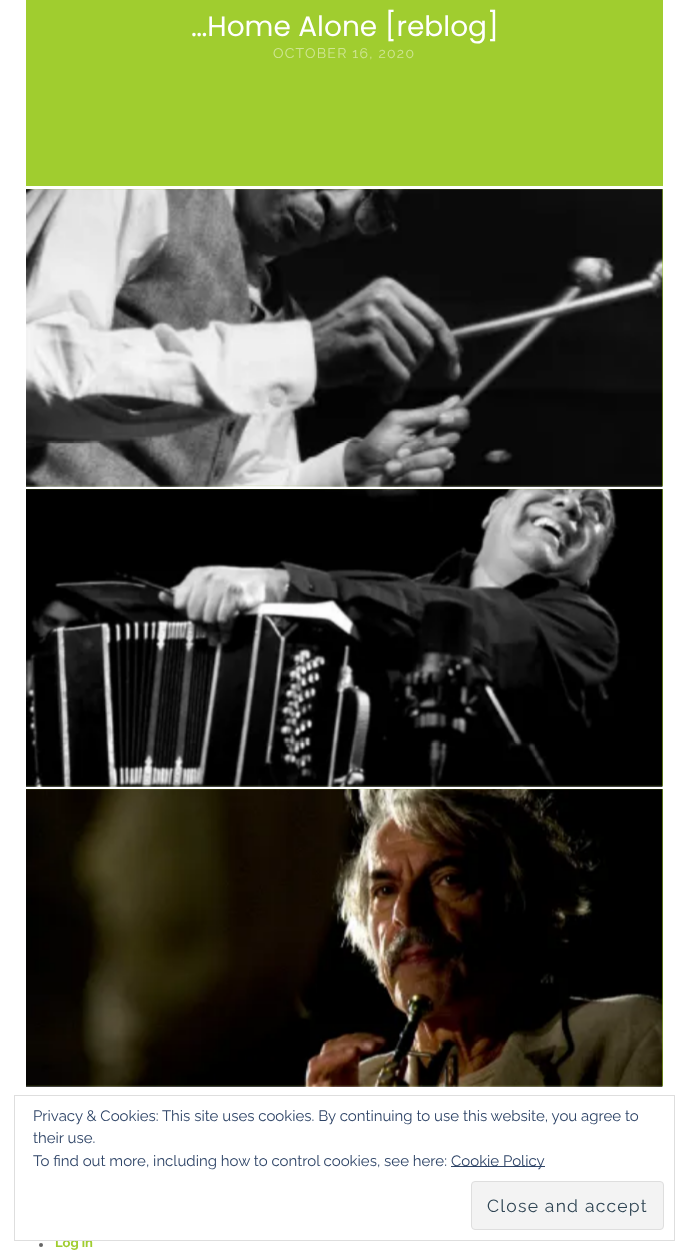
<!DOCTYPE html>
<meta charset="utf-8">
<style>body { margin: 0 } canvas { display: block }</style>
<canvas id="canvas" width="688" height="1255"></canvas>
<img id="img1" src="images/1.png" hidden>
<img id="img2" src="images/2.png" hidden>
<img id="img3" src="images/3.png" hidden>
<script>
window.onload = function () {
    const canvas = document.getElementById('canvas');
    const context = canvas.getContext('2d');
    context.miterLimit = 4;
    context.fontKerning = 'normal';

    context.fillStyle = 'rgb(255, 255, 255)';
    context.fillRect(0, 0, 688, 1255);
    context.fillStyle = 'rgb(160, 205, 47)';
    context.fillRect(26, 0, 637, 186);
    context.fillRect(26, 189, 637, 297);
    context.drawImage(document.getElementById('img1'), 26, 189, 637, 298);
    context.fillRect(26, 489, 637, 297);
    context.drawImage(document.getElementById('img2'), 26, 489, 637, 298);
    context.fillRect(26, 789, 637, 297);
    context.drawImage(document.getElementById('img3'), 26, 789, 637, 298);
    context.fillStyle = 'rgb(102, 102, 102)';
    context.beginPath();
    context.arc(41, 1245, 2, 0, 2 * Math.PI);
    context.fill();
    context.font = '28px Poppins';
    context.fillStyle = 'rgb(255, 255, 255)';
    context.fillText('…Home Alone [reblog]', 191, 36);
    context.letterSpacing = '1.25px';
    context.font = '14px Raleway';
    context.fillStyle = 'rgb(208, 230, 151)';
    context.fillText('OCTOBER 16, 2020', 273, 58);
    context.letterSpacing = '0px';
    context.font = 'bold 13px Raleway';
    context.fillStyle = 'rgb(160, 205, 47)';
    context.fillText('Log in', 55, 1247);
    context.fillStyle = 'rgb(255, 255, 255)';
    context.fillRect(55, 1237, 30, 3);
    context.strokeStyle = 'rgb(222, 222, 222)';
    context.strokeRect(14.5, 1095.5, 660, 145);
    context.fillStyle = 'rgb(243, 243, 243)';
    context.beginPath();
    context.roundRect(471.5, 1181.5, 192, 48, 3.5);
    context.fill();
    context.stroke();
    context.letterSpacing = '1.25px';
    context.font = '17.5px Raleway';
    context.fillStyle = 'rgb(46, 68, 83)';
    context.fillText('Close and accept', 487, 1212);
    context.fillStyle = 'rgb(46, 68, 103)';
    context.fillRect(451, 1166, 94, 1);
    context.letterSpacing = '0px';
    context.font = '15px Raleway';
    context.fillText('Cookie Policy', 451, 1166);
    context.fillText('To find out more, including how to control cookies, see here:', 33, 1166);
    context.fillText('their use.', 33, 1143);
    context.fillText('Privacy & Cookies: This site uses cookies. By continuing to use this website, you agree to', 33, 1121);
};
</script>
